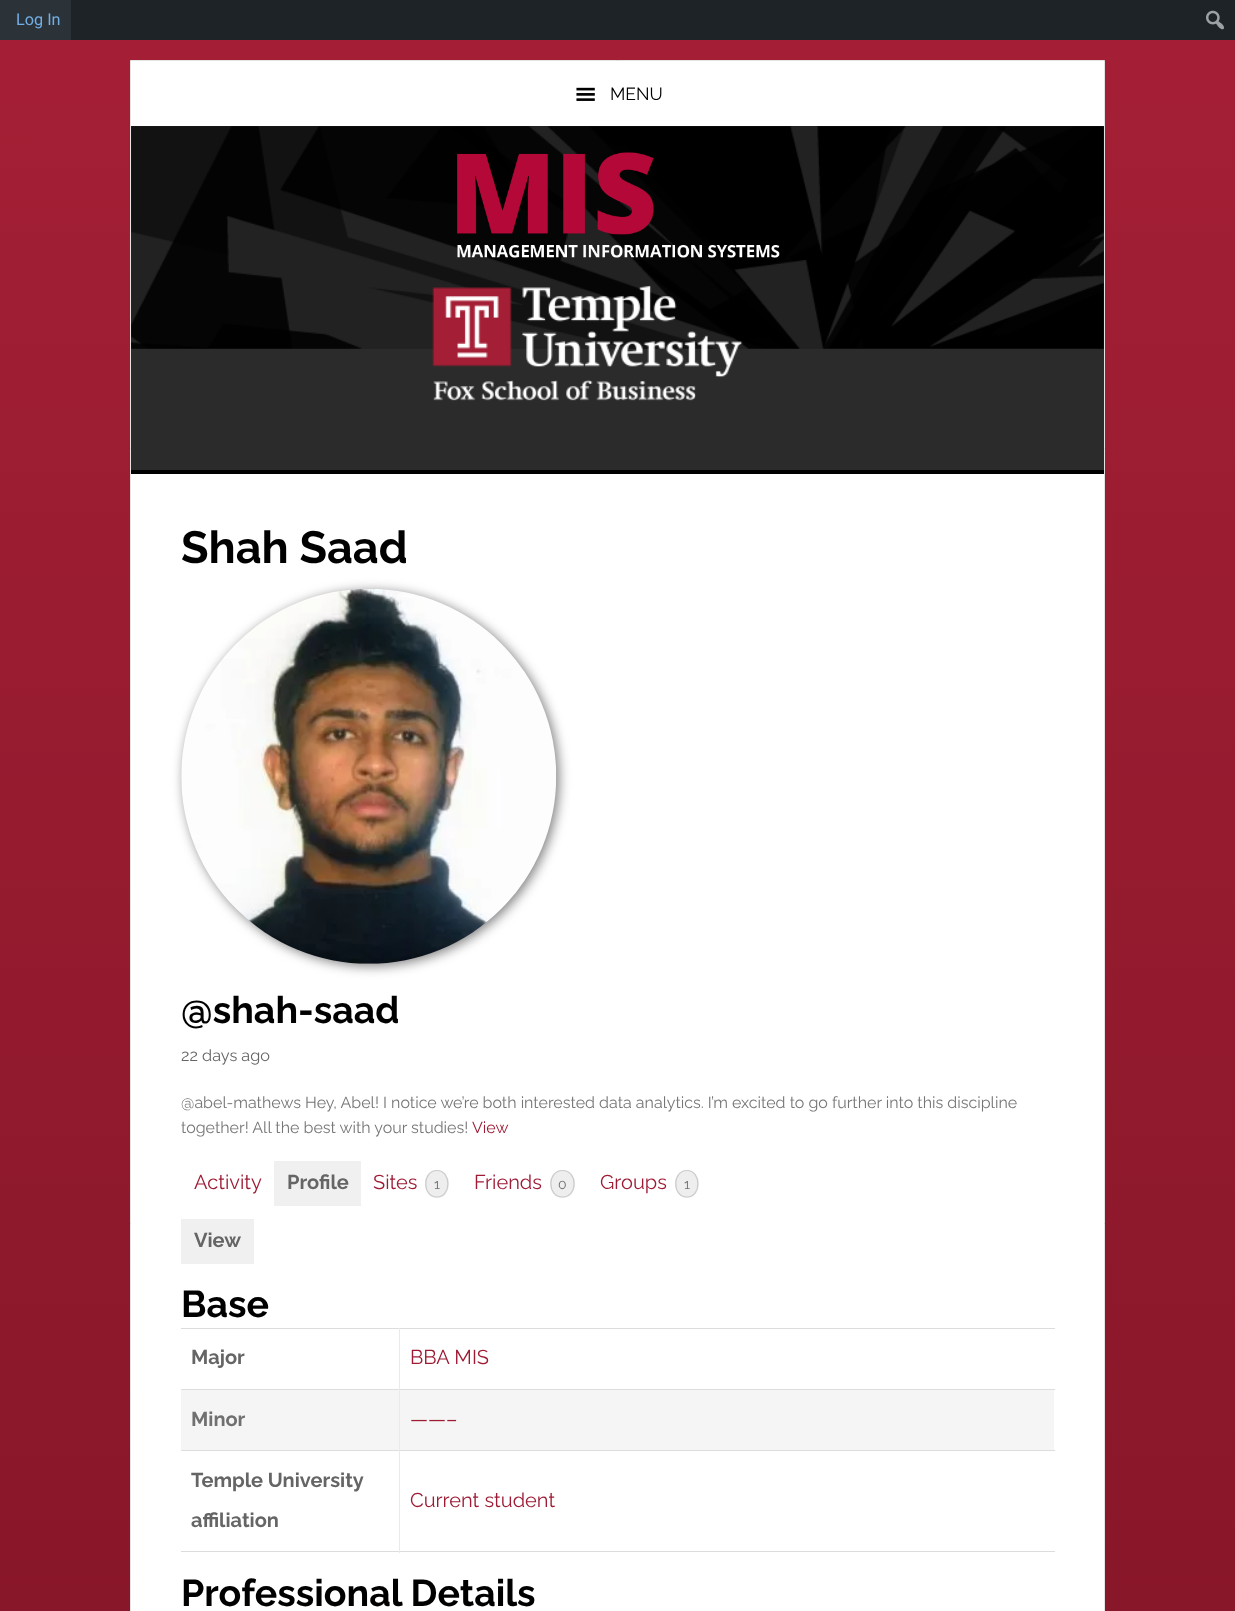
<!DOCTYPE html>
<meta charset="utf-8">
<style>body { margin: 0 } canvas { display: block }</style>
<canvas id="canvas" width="1235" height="1611"></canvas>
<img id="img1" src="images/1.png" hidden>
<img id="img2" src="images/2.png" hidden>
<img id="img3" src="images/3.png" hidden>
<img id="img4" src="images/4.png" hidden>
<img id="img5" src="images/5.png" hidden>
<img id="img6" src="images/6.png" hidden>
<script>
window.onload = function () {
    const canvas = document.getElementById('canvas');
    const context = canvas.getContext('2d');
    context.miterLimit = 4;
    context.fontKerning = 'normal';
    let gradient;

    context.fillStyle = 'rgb(255, 255, 255)';
    context.fillRect(0, 0, 1235, 1611);
    gradient = context.createLinearGradient(617, 40, 618, 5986);
    gradient.addColorStop(0, 'rgb(164, 31, 53)');
    gradient.addColorStop(1, 'rgb(58, 0, 8)');
    context.fillStyle = gradient;
    context.fillRect(0, 40, 1235, 1571);
    context.fillStyle = 'rgb(29, 35, 39)';
    context.fillRect(71, 0, 1164, 40);
    context.fillStyle = 'rgb(44, 51, 56)';
    context.fillRect(0, 0, 71, 40);
    context.drawImage(document.getElementById('img1'), 1206, 10, 18, 20);
    context.fillStyle = 'rgb(255, 255, 255)';
    context.beginPath();
    context.rect(130.5, 60.5, 974, 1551);
    context.fill();
    context.strokeStyle = 'rgb(227, 227, 227)';
    context.stroke();
    context.drawImage(document.getElementById('img2'), 576, 87, 19, 14);
    context.fillStyle = 'rgb(43, 43, 43)';
    context.fillRect(131, 126, 973, 344);
    context.drawImage(document.getElementById('img3'), 131, 126, 973, 223);
    context.fillStyle = 'rgb(0, 0, 0)';
    context.fillRect(131, 470, 973, 4);
    context.drawImage(document.getElementById('img4'), 457, 152, 323, 106);
    context.drawImage(document.getElementById('img5'), 432, 285, 311, 116);
    context.fillStyle = 'rgb(128, 128, 128)';
    context.filter = 'blur(6px)';
    context.beginPath();
    context.roundRect(184, 591, 375, 375, 187.5);
    context.fill();
    context.filter = 'none';
    context.drawImage(document.getElementById('img6'), 181, 589, 376, 375);
    context.fillStyle = 'rgb(240, 240, 240)';
    context.fillRect(274, 1161, 87, 45);
    context.fillStyle = 'rgb(238, 238, 238)';
    context.beginPath();
    context.ellipse(437, 1184, 12, 14, 0, 0, 2 * Math.PI);
    context.fill();
    context.beginPath();
    context.moveTo(437, 1170.5);
    context.bezierCurveTo(451.5, 1170.5, 451.5, 1197, 437, 1197);
    context.bezierCurveTo(422, 1197, 422, 1170.5, 437, 1170.5);
    context.closePath();
    context.strokeStyle = 'rgb(204, 204, 204)';
    context.lineWidth = 1.2;
    context.stroke();
    context.beginPath();
    context.ellipse(562.5, 1184, 12.5, 14, 0, 0, 2 * Math.PI);
    context.fill();
    context.beginPath();
    context.moveTo(562.5, 1170.5);
    context.bezierCurveTo(578, 1170.5, 578, 1197, 562.5, 1197);
    context.bezierCurveTo(547, 1197, 547, 1170.5, 562.5, 1170.5);
    context.closePath();
    context.stroke();
    context.beginPath();
    context.ellipse(687, 1184, 12, 14, 0, 0, 2 * Math.PI);
    context.fill();
    context.beginPath();
    context.moveTo(687, 1170.5);
    context.bezierCurveTo(701.5, 1170.5, 701.5, 1197, 687, 1197);
    context.bezierCurveTo(672, 1197, 672, 1170.5, 687, 1170.5);
    context.closePath();
    context.stroke();
    context.fillStyle = 'rgb(240, 240, 240)';
    context.fillRect(181, 1219, 73, 45);
    context.fillStyle = 'rgb(221, 221, 221)';
    context.fillRect(181, 1551, 874, 1);
    context.fillRect(181, 1328, 874, 1);
    context.fillRect(181, 1389, 874, 1);
    context.fillRect(181, 1450, 874, 1);
    context.fillStyle = 'rgb(234, 234, 234)';
    context.fillRect(399, 1450, 1, 103);
    context.fillRect(399, 1389, 1, 62);
    context.fillRect(399, 1328, 1, 62);
    context.fillStyle = 'rgb(245, 245, 245)';
    context.fillRect(181, 1390, 218, 60);
    context.fillRect(400, 1390, 654, 60);
    context.font = '16.25px Roboto';
    context.fillStyle = 'rgb(114, 174, 230)';
    context.fillText('Log In', 16, 25);
    context.font = '17.5px Raleway';
    context.fillStyle = 'rgb(0, 0, 0)';
    context.fillText('MENU', 610, 100);
    context.font = 'bold 45px Raleway';
    context.fillText('Shah Saad', 181, 563);
    context.font = 'bold 37.5px Raleway';
    context.fillText('@shah-saad', 181, 1023);
    context.font = '16.25px Raleway';
    context.fillStyle = 'rgb(101, 101, 101)';
    context.fillText('22 days ago', 181, 1061);
    context.font = '16px Raleway';
    context.fillStyle = 'rgb(118, 118, 118)';
    context.fillText('@abel-mathews Hey, Abel! I notice we’re both interested data analytics. I’m excited to go further into this discipline', 181, 1108);
    context.fillText('together! All the best with your studies!', 181, 1133);
    context.fillStyle = 'rgb(158, 27, 52)';
    context.fillText('View', 472, 1133);
    context.font = '20px Raleway';
    context.fillText('Activity', 194, 1189);
    context.font = 'bold 20px Raleway';
    context.fillStyle = 'rgb(101, 101, 101)';
    context.fillText('Profile', 287, 1189);
    context.font = '20px Raleway';
    context.fillStyle = 'rgb(158, 27, 52)';
    context.fillText('Sites', 373, 1189);
    context.font = '14px Raleway';
    context.fillStyle = 'rgb(112, 112, 112)';
    context.fillText('1', 434, 1189);
    context.font = '20px Raleway';
    context.fillStyle = 'rgb(158, 27, 52)';
    context.fillText('Friends', 474, 1189);
    context.font = '14px Raleway';
    context.fillStyle = 'rgb(112, 112, 112)';
    context.fillText('0', 558, 1189);
    context.font = '20px Raleway';
    context.fillStyle = 'rgb(158, 27, 52)';
    context.fillText('Groups', 600, 1189);
    context.font = '14px Raleway';
    context.fillStyle = 'rgb(112, 112, 112)';
    context.fillText('1', 684, 1189);
    context.font = 'bold 20px Raleway';
    context.fillStyle = 'rgb(101, 101, 101)';
    context.fillText('View', 194, 1247);
    context.font = 'bold 37.5px Raleway';
    context.fillStyle = 'rgb(0, 0, 0)';
    context.fillText('Base', 181, 1317);
    context.font = 'bold 20px Raleway';
    context.fillStyle = 'rgb(101, 101, 101)';
    context.fillText('Major', 191, 1364);
    context.font = '20px Raleway';
    context.fillStyle = 'rgb(158, 27, 52)';
    context.fillText('BBA MIS', 410, 1364);
    context.font = 'bold 20px Raleway';
    context.fillStyle = 'rgb(112, 112, 112)';
    context.fillText('Minor', 191, 1426);
    context.font = '20px Raleway';
    context.fillStyle = 'rgb(158, 27, 52)';
    context.fillText('——–', 410, 1426);
    context.font = 'bold 20px Raleway';
    context.fillStyle = 'rgb(101, 101, 101)';
    context.fillText('Temple University', 191, 1487);
    context.fillText('affiliation', 191, 1527);
    context.font = '20px Raleway';
    context.fillStyle = 'rgb(158, 27, 52)';
    context.fillText('Current student', 410, 1507);
    context.font = 'bold 37.5px Raleway';
    context.fillStyle = 'rgb(0, 0, 0)';
    context.fillText('Professional Details', 181, 1606);
};
</script>
